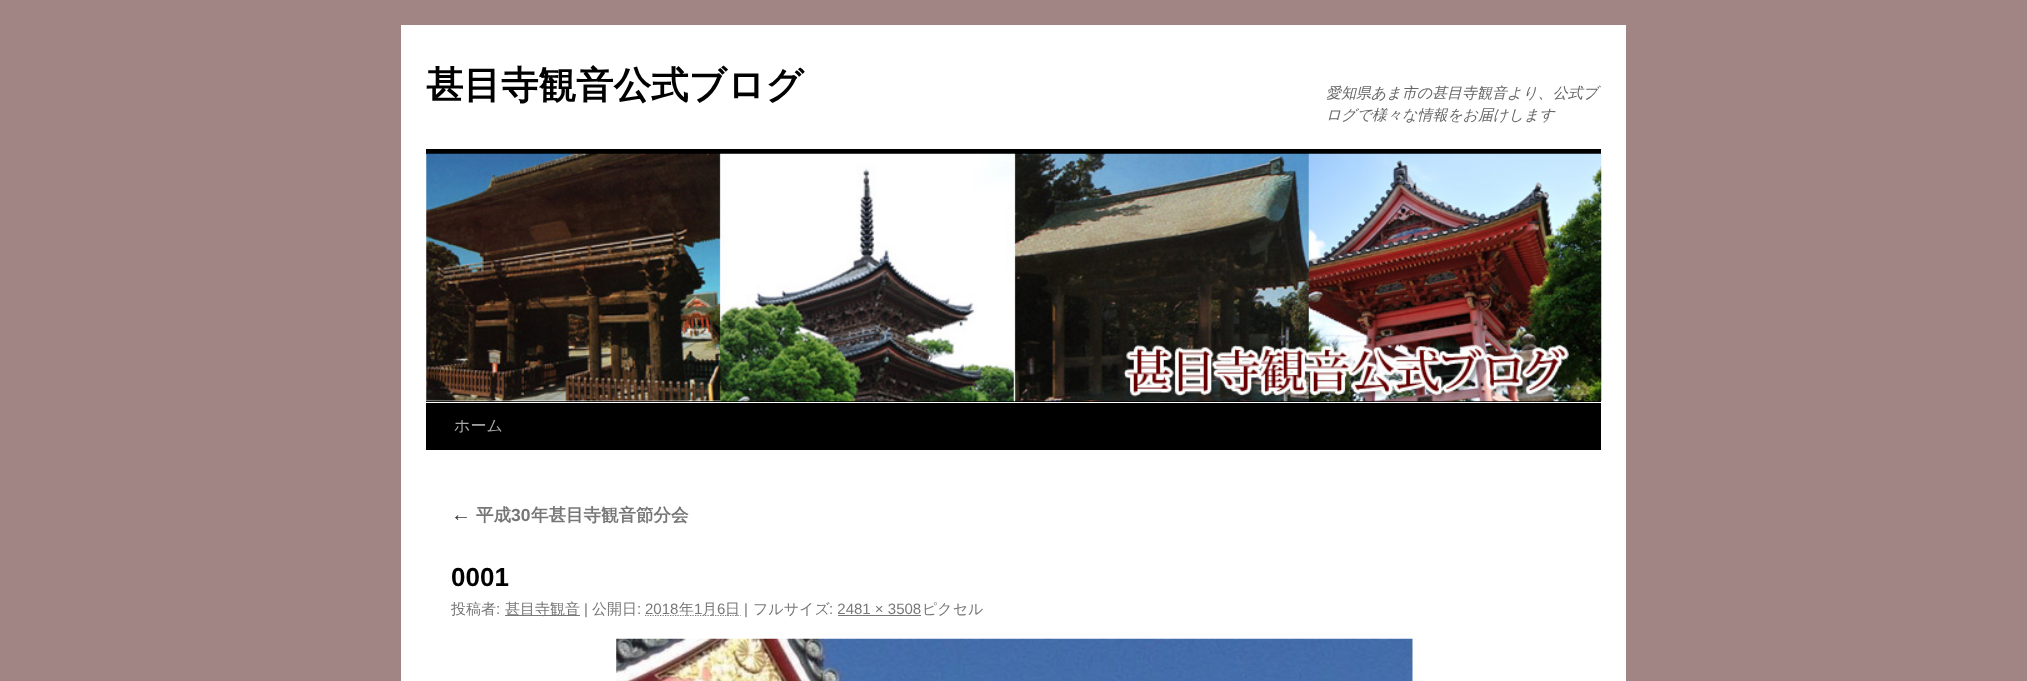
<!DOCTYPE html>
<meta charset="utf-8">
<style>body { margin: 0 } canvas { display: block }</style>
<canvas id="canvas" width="2027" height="681"></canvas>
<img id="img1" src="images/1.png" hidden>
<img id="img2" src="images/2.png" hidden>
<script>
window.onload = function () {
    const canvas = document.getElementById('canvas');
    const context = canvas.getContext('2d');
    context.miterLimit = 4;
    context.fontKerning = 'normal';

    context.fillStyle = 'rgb(161, 133, 133)';
    context.fillRect(0, 0, 2027, 681);
    context.fillStyle = 'rgb(255, 255, 255)';
    context.fillRect(401, 25, 1225, 656);
    context.fillStyle = 'rgb(0, 0, 0)';
    context.fillRect(426, 149, 1175, 5);
    context.fillRect(426, 401, 1175, 1);
    context.drawImage(document.getElementById('img1'), 426, 153, 1176, 249);
    context.fillRect(426, 403, 1175, 47);
    context.fillStyle = 'rgb(119, 119, 119)';
    context.fillRect(505, 615, 75, 1);
    context.beginPath();
    context.moveTo(645, 615.5);
    context.lineTo(740.5, 615.5);
    context.strokeStyle = 'rgb(119, 119, 119)';
    context.lineWidth = 1.2;
    context.setLineDash([1.25, 1.25]);
    context.stroke();
    context.fillRect(838, 615, 83, 1);
    context.drawImage(document.getElementById('img2'), 616, 638, 797, 43);
    context.font = 'bold 37.5px WenQuanYi Zen Hei';
    context.fillStyle = 'rgb(0, 0, 0)';
    context.fillText('甚目寺観音公式ブログ', 426, 98);
    context.font = 'italic 500 15px WenQuanYi Zen Hei';
    context.fillStyle = 'rgb(102, 102, 102)';
    context.fillText('愛知県あま市の甚目寺観音より、公式ブ', 1326, 98);
    context.fillText('ログで様々な情報をお届けします', 1326, 120);
    context.font = '500 16px WenQuanYi Zen Hei';
    context.fillStyle = 'rgb(170, 170, 170)';
    context.fillText('ホーム', 454, 431);
    context.font = 'italic 20px Liberation Serif';
    context.fillStyle = 'rgb(51, 51, 51)';
    context.fillText('←', 451, 521);
    context.font = 'bold 17.5px WenQuanYi Zen Hei';
    context.fillStyle = 'rgb(119, 119, 119)';
    context.fillText('平成', 476, 521);
    context.font = 'bold 17.5px Liberation Sans';
    context.fillText('30', 511, 521);
    context.font = 'bold 17.5px WenQuanYi Zen Hei';
    context.fillText('年甚目寺観音節分会', 531, 521);
    context.font = 'bold 26px Liberation Sans';
    context.fillStyle = 'rgb(0, 0, 0)';
    context.fillText('0001', 451, 586);
    context.font = '500 15px WenQuanYi Zen Hei';
    context.fillStyle = 'rgb(119, 119, 119)';
    context.fillText('投稿者', 451, 614);
    context.font = '15px Liberation Sans';
    context.fillText(':', 496, 614);
    context.font = '500 15px WenQuanYi Zen Hei';
    context.fillText('甚目寺観音', 505, 614);
    context.font = '15px Liberation Sans';
    context.fillText('|', 584, 614);
    context.font = '500 15px WenQuanYi Zen Hei';
    context.fillText('公開日', 592, 614);
    context.font = '15px Liberation Sans';
    context.fillText(':', 637, 614);
    context.fillText('2018', 645, 614);
    context.font = '500 15px WenQuanYi Zen Hei';
    context.fillText('年', 679, 614);
    context.font = '15px Liberation Sans';
    context.fillText('1', 694, 614);
    context.font = '500 15px WenQuanYi Zen Hei';
    context.fillText('月', 702, 614);
    context.font = '15px Liberation Sans';
    context.fillText('6', 717, 614);
    context.font = '500 15px WenQuanYi Zen Hei';
    context.fillText('日', 725, 614);
    context.font = '15px Liberation Sans';
    context.fillText('|', 744, 614);
    context.font = '500 15px WenQuanYi Zen Hei';
    context.fillText('フルサイズ', 753, 614);
    context.font = '15px Liberation Sans';
    context.fillText(': 2481 × 3508', 829, 614);
    context.font = '500 15px WenQuanYi Zen Hei';
    context.fillText('ピクセル', 922, 614);
};
</script>
